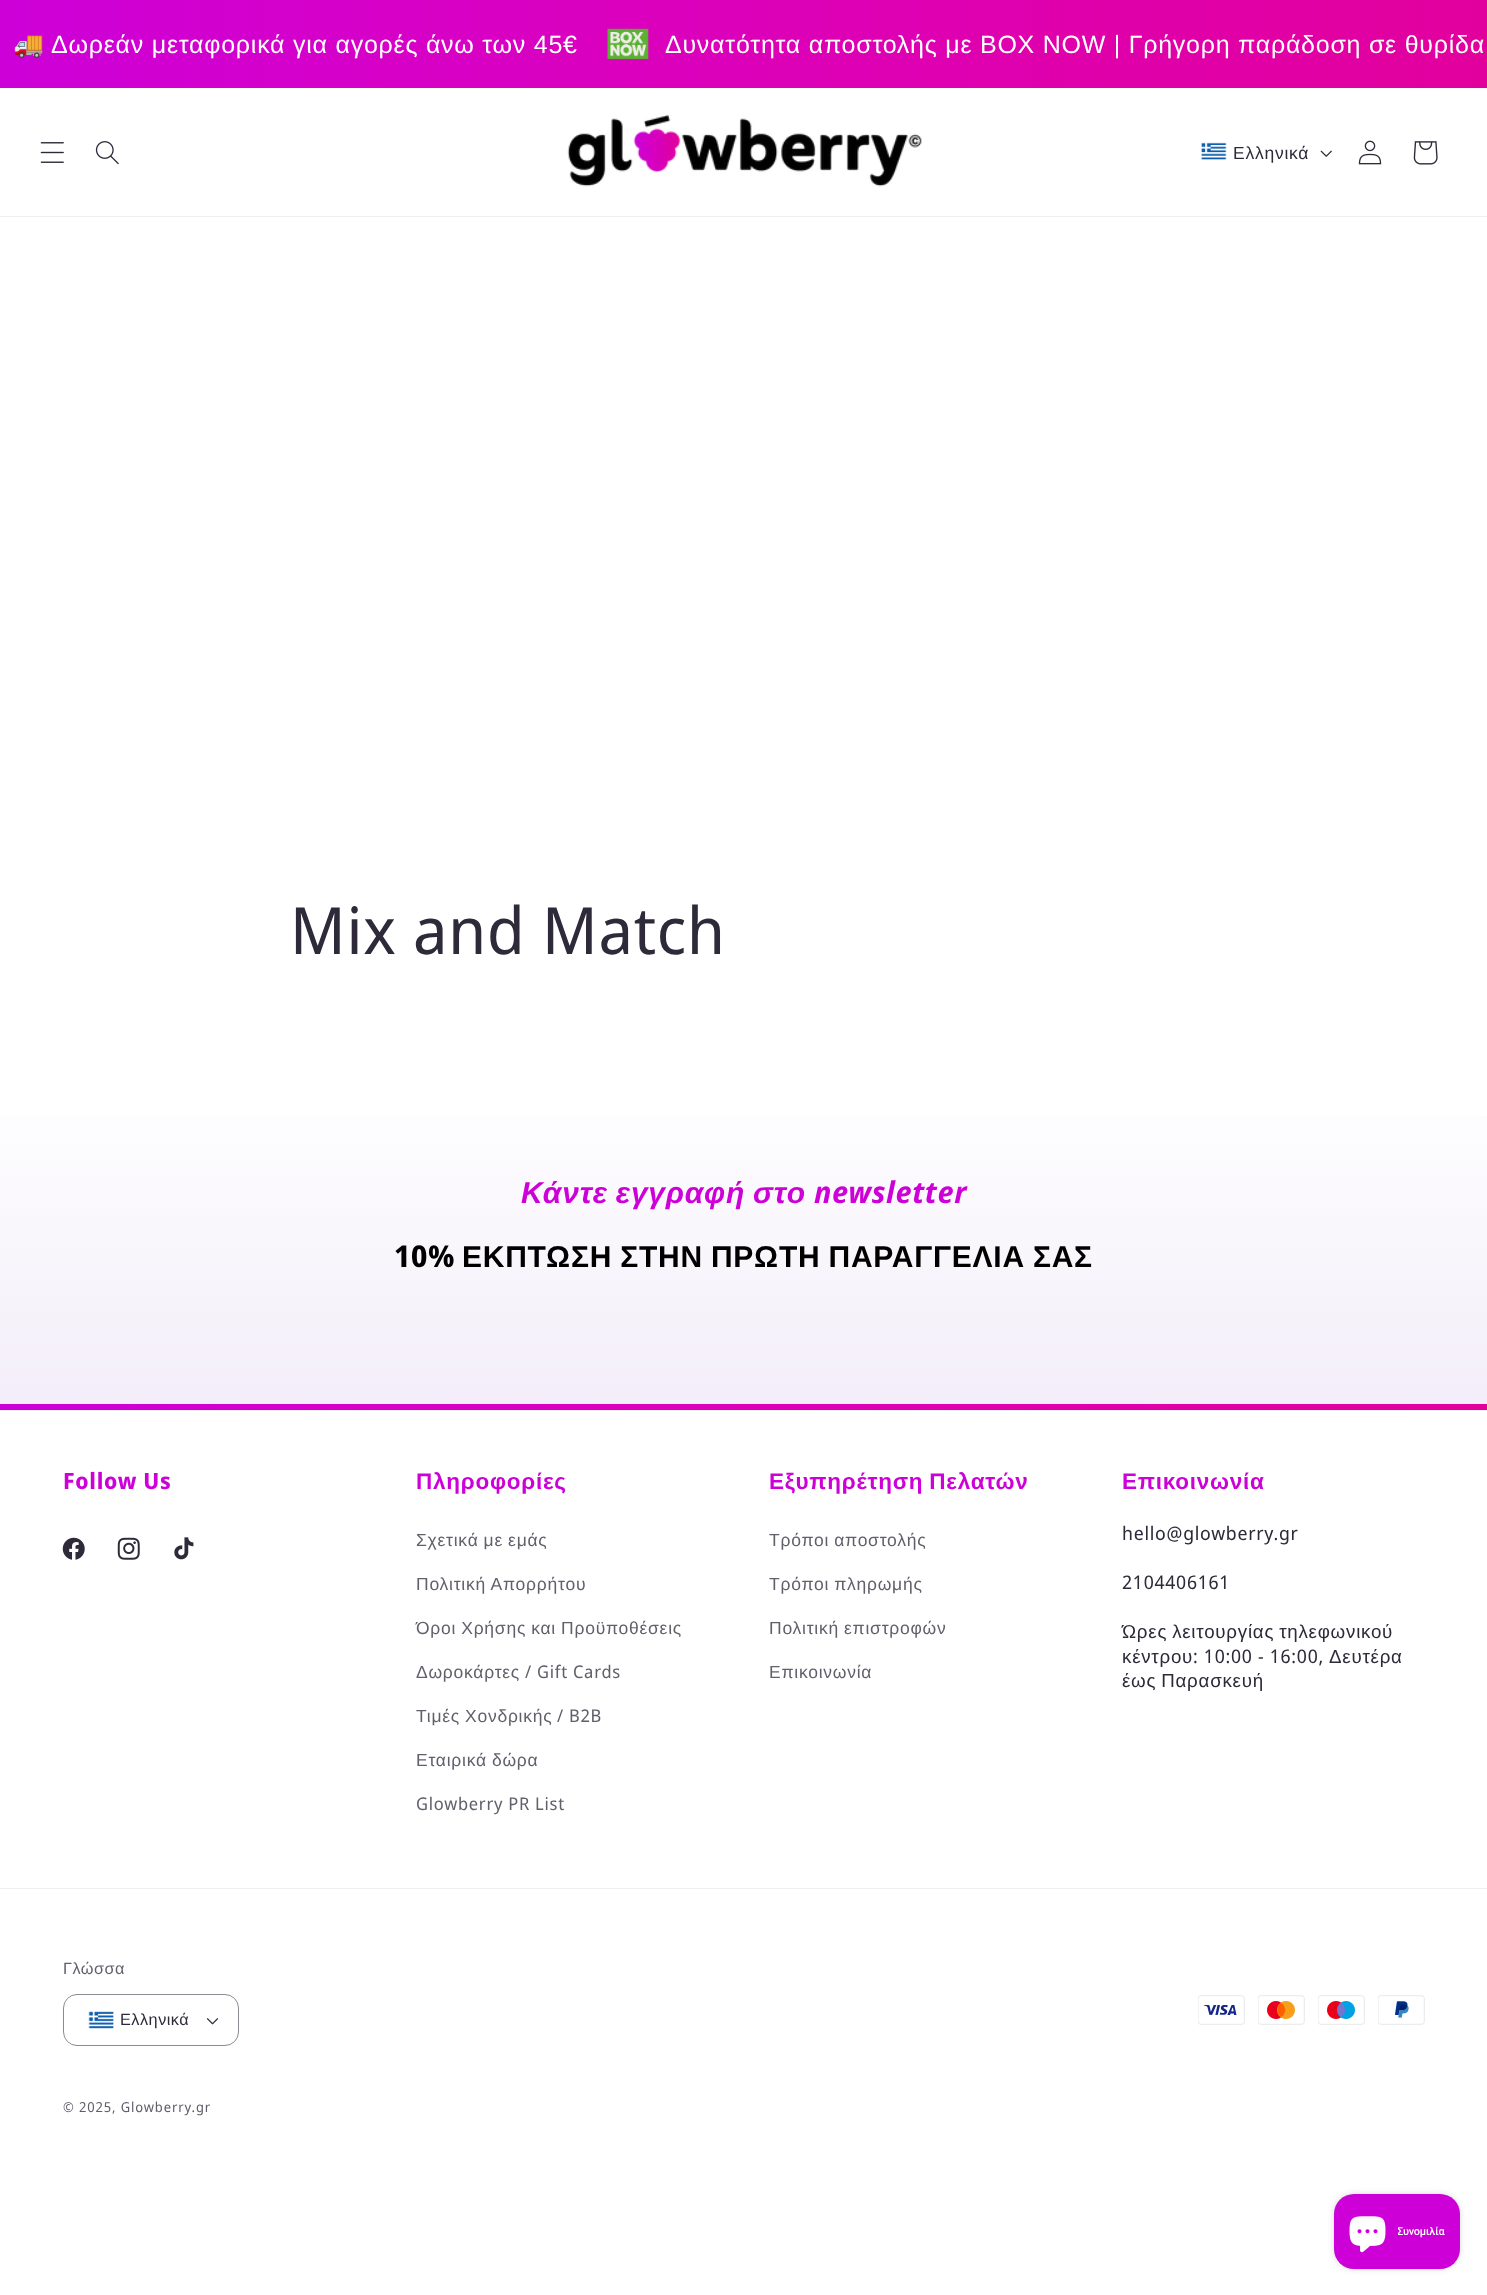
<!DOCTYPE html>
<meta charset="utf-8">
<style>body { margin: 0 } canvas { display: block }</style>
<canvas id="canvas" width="1487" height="2295"></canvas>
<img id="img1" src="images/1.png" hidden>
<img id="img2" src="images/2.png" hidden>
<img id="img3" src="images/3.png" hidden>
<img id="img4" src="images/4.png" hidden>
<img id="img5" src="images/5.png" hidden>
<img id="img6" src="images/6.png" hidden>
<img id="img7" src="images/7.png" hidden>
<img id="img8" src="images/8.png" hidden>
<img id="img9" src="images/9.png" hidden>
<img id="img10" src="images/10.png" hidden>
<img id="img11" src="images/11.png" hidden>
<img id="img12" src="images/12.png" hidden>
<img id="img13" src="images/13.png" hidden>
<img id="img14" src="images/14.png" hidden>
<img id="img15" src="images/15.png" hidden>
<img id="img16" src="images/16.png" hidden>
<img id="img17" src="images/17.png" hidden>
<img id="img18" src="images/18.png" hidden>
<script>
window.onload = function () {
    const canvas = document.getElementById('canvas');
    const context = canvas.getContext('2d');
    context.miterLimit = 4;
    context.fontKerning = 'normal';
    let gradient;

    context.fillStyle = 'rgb(255, 255, 255)';
    context.fillRect(0, 0, 1487, 2295);
    gradient = context.createLinearGradient(0, 44, 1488, 44);
    gradient.addColorStop(0, 'rgb(205, 0, 216)');
    gradient.addColorStop(0.25, 'rgb(214, 0, 200)');
    gradient.addColorStop(0.5, 'rgb(220, 0, 185)');
    gradient.addColorStop(0.75, 'rgb(224, 0, 170)');
    gradient.addColorStop(1, 'rgb(226, 0, 157)');
    context.fillStyle = gradient;
    context.fillRect(0, 0, 1487, 88);
    context.drawImage(document.getElementById('img1'), 606, 28, 43, 32);
    context.fillStyle = 'rgb(238, 238, 239)';
    context.fillRect(0, 216, 1487, 1);
    context.drawImage(document.getElementById('img2'), 40, 142, 24, 21);
    context.drawImage(document.getElementById('img3'), 95, 141, 24, 24);
    context.drawImage(document.getElementById('img4'), 567, 114, 355, 73);
    context.drawImage(document.getElementById('img5'), 1201, 142, 26, 18);
    context.drawImage(document.getElementById('img6'), 1320, 150, 12, 7);
    context.drawImage(document.getElementById('img7'), 1358, 140, 24, 25);
    context.drawImage(document.getElementById('img8'), 1413, 141, 25, 24);
    gradient = context.createLinearGradient(744, 1066, 744, 1404);
    gradient.addColorStop(0, 'rgb(255, 255, 255)');
    gradient.addColorStop(1, 'rgb(243, 238, 249)');
    context.fillStyle = gradient;
    context.fillRect(0, 1116, 1487, 288);
    gradient = context.createLinearGradient(0, 1407, 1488, 1407);
    gradient.addColorStop(0, 'rgb(205, 0, 216)');
    gradient.addColorStop(0.25, 'rgb(214, 0, 200)');
    gradient.addColorStop(0.5, 'rgb(220, 0, 185)');
    gradient.addColorStop(0.75, 'rgb(224, 0, 170)');
    gradient.addColorStop(1, 'rgb(226, 0, 157)');
    context.fillStyle = gradient;
    context.fillRect(0, 1404, 1487, 6);
    context.fillStyle = 'rgb(238, 238, 239)';
    context.fillRect(0, 1410, 1487, 1);
    context.drawImage(document.getElementById('img9'), 62, 1537, 23, 23);
    context.drawImage(document.getElementById('img10'), 117, 1537, 23, 23);
    context.drawImage(document.getElementById('img11'), 174, 1537, 20, 23);
    context.fillRect(0, 1888, 1487, 1);
    context.drawImage(document.getElementById('img12'), 88, 2011, 26, 18);
    context.drawImage(document.getElementById('img13'), 206, 2018, 13, 7);
    context.beginPath();
    context.roundRect(63.5, 1994.5, 175, 51, 13.5);
    context.strokeStyle = 'rgb(140, 138, 146)';
    context.stroke();
    context.drawImage(document.getElementById('img14'), 1198, 1995, 47, 30);
    context.drawImage(document.getElementById('img15'), 1258, 1995, 47, 30);
    context.drawImage(document.getElementById('img16'), 1318, 1995, 47, 30);
    context.drawImage(document.getElementById('img17'), 1378, 1995, 47, 30);
    context.fillStyle = 'rgba(0, 0, 0, 0.15)';
    context.filter = 'blur(3px)';
    context.beginPath();
    context.roundRect(1334, 2194, 126, 75, 20);
    context.fill();
    context.filter = 'none';
    context.fillStyle = 'rgb(205, 0, 216)';
    context.beginPath();
    context.roundRect(1334, 2194, 126, 75, 20);
    context.fill();
    context.drawImage(document.getElementById('img18'), 1349, 2216, 37, 37);
    context.letterSpacing = '0.75px';
    context.font = '25px Noto Color Emoji';
    context.fillStyle = 'rgb(255, 255, 255)';
    context.fillText('🚚', 13, 53);
    context.font = '25px Liberation Sans';
    context.fillText('Δωρεάν μεταφορικά για αγορές άνω των 45€', 51, 53);
    context.fillText('Δυνατότητα αποστολής με BOX NOW | Γρήγορη παράδοση σε θυρίδα', 665, 53);
    context.font = '17.5px Liberation Sans';
    context.fillStyle = 'rgb(46, 42, 57)';
    context.fillText('Ελληνικά', 1233, 159);
    context.font = '65px Noto Sans Display';
    context.fillText('Mix and Match', 290, 954);
    context.wordSpacing = '-1px';
    context.font = 'italic bold 30px Liberation Sans';
    context.fillStyle = 'rgb(205, 0, 216)';
    context.fillText('Κάντε εγγραφή στο', 521, 1203);
    context.wordSpacing = '0px';
    context.font = 'italic bold 30px Noto Sans Display';
    context.fillText('newsletter', 814, 1203);
    context.font = 'bold 30px Noto Sans Display';
    context.fillStyle = 'rgb(0, 0, 0)';
    context.fillText('10%', 394, 1267);
    context.wordSpacing = '-1px';
    context.font = 'bold 30px Liberation Sans';
    context.fillText('ΕΚΠΤΩΣΗ ΣΤΗΝ ΠΡΩΤΗ ΠΑΡΑΓΓΕΛΙΑ ΣΑΣ', 462, 1267);
    context.wordSpacing = '0px';
    context.font = 'bold 22.5px Noto Sans Display';
    context.fillStyle = 'rgb(205, 0, 216)';
    context.fillText('Follow Us', 63, 1489);
    context.font = 'bold 22.5px Liberation Sans';
    context.fillText('Πληροφορίες', 416, 1489);
    context.wordSpacing = '-0.5px';
    context.font = '17.5px Liberation Sans';
    context.fillStyle = 'rgb(98, 95, 107)';
    context.fillText('Σχετικά με εμάς', 416, 1546);
    context.wordSpacing = '0px';
    context.fillText('Πολιτική Απορρήτου', 416, 1590);
    context.wordSpacing = '-0.5px';
    context.fillText('Όροι Χρήσης και Προϋποθέσεις', 416, 1634);
    context.wordSpacing = '0px';
    context.fillText('Δωροκάρτες', 416, 1678);
    context.font = '17.5px Noto Sans Display';
    context.fillText('/ Gift Cards', 525, 1678);
    context.font = '17.5px Liberation Sans';
    context.fillText('Τιμές', 416, 1722);
    context.fillText('Χονδρικής', 465, 1722);
    context.font = '17.5px Noto Sans Display';
    context.fillText('/ B2B', 557, 1722);
    context.wordSpacing = '-0.5px';
    context.font = '17.5px Liberation Sans';
    context.fillText('Εταιρικά δώρα', 416, 1766);
    context.wordSpacing = '0px';
    context.font = '17.5px Noto Sans Display';
    context.fillText('Glowberry PR List', 416, 1810);
    context.wordSpacing = '-1px';
    context.font = 'bold 22.5px Liberation Sans';
    context.fillStyle = 'rgb(205, 0, 216)';
    context.fillText('Εξυπηρέτηση Πελατών', 769, 1489);
    context.wordSpacing = '-0.5px';
    context.font = '17.5px Liberation Sans';
    context.fillStyle = 'rgb(98, 95, 107)';
    context.fillText('Τρόποι αποστολής', 769, 1546);
    context.fillText('Τρόποι πληρωμής', 769, 1590);
    context.fillText('Πολιτική επιστροφών', 769, 1634);
    context.wordSpacing = '0px';
    context.fillText('Επικοινωνία', 769, 1678);
    context.font = 'bold 22.5px Liberation Sans';
    context.fillStyle = 'rgb(205, 0, 216)';
    context.fillText('Επικοινωνία', 1122, 1489);
    context.font = '18.75px Noto Sans Display';
    context.fillStyle = 'rgb(46, 42, 57)';
    context.fillText('hello@glowberry.gr', 1122, 1540);
    context.fillText('2104406161', 1122, 1589);
    context.wordSpacing = '-1px';
    context.font = '18.75px Liberation Sans';
    context.fillText('Ώρες λειτουργίας τηλεφωνικού', 1122, 1638);
    context.wordSpacing = '0px';
    context.fillText('κέντρου', 1122, 1663);
    context.font = '18.75px Noto Sans Display';
    context.fillText(': 10:00 - 16:00,', 1193, 1663);
    context.font = '18.75px Liberation Sans';
    context.fillText('Δευτέρα', 1329, 1663);
    context.wordSpacing = '-1px';
    context.fillText('έως Παρασκευή', 1122, 1687);
    context.letterSpacing = '0.5px';
    context.wordSpacing = '0px';
    context.font = '16.25px Liberation Sans';
    context.fillStyle = 'rgb(98, 95, 107)';
    context.fillText('Γλώσσα', 63, 1974);
    context.fillStyle = 'rgb(46, 42, 57)';
    context.fillText('Ελληνικά', 120, 2025);
    context.letterSpacing = '0.9px';
    context.font = '13.75px Noto Sans Display';
    context.fillStyle = 'rgb(98, 95, 107)';
    context.fillText('© 2025, Glowberry.gr', 63, 2112);
    context.save();
    context.beginPath();
    context.rect(1398, 2213, 47, 37);
    context.clip();
    context.letterSpacing = '0px';
    context.font = 'bold 10.5px Roboto';
    context.fillStyle = 'rgb(255, 255, 255)';
    context.fillText('Συνομιλία', 1397, 2235);
    context.restore();
};
</script>
